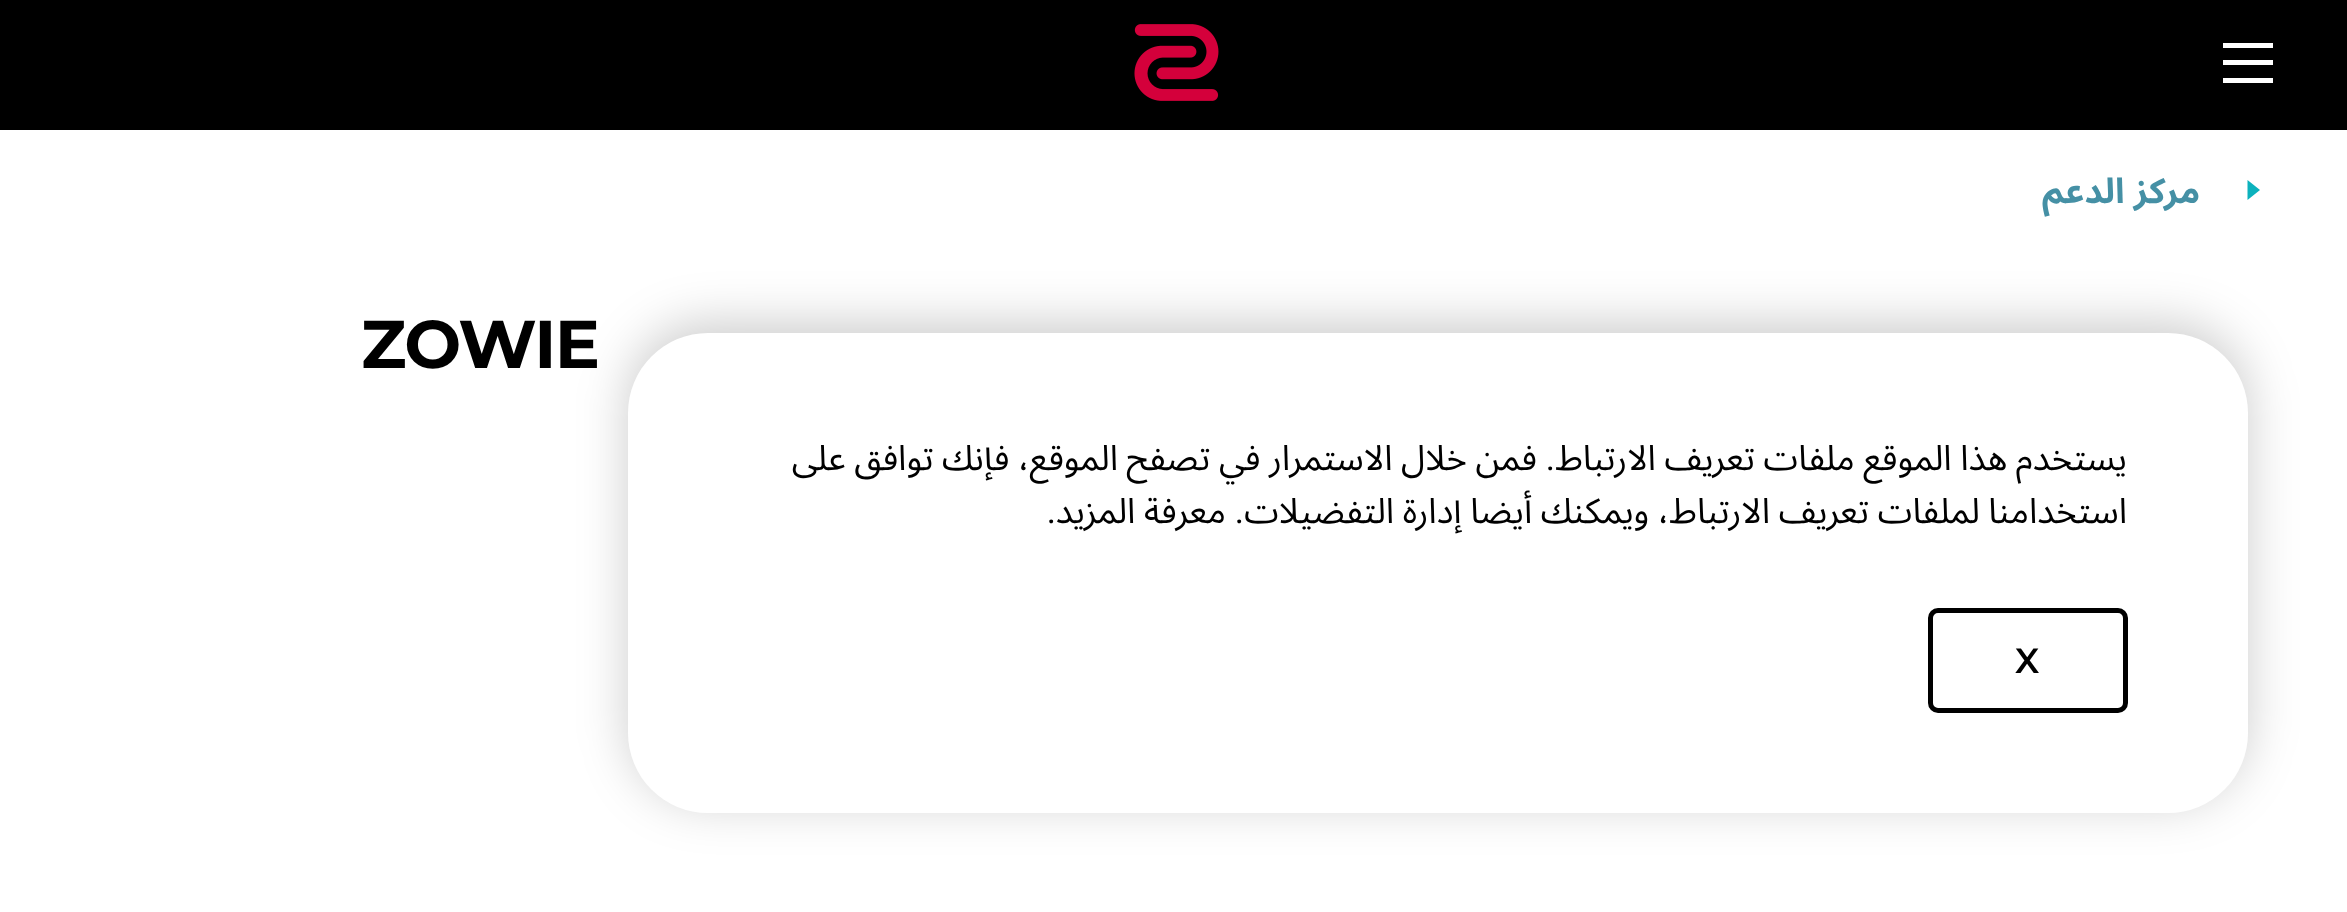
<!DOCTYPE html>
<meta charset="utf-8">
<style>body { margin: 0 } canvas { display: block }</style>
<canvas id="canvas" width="2347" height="912"></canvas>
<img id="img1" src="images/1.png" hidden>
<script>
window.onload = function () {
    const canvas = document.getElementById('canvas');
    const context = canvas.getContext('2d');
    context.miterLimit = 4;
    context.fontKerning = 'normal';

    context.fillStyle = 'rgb(255, 255, 255)';
    context.fillRect(0, 0, 2347, 912);
    context.fillStyle = 'rgb(12, 178, 189)';
    context.beginPath();
    context.moveTo(2247.5, 200);
    context.lineTo(2247.5, 180);
    context.lineTo(2260, 190);
    context.closePath();
    context.fill();
    context.fillStyle = 'rgb(0, 0, 0)';
    context.fillRect(0, 0, 2347, 130);
    context.fillStyle = 'rgb(255, 255, 255)';
    context.fillRect(2223, 43, 50, 5);
    context.fillRect(2223, 60, 50, 5);
    context.fillRect(2223, 78, 50, 5);
    context.drawImage(document.getElementById('img1'), 1134, 24, 85, 77);
    context.fillStyle = 'rgba(0, 0, 0, 0.2)';
    context.filter = 'blur(25px)';
    context.beginPath();
    context.roundRect(628, 323, 1620, 480, 80);
    context.fill();
    context.filter = 'none';
    context.fillStyle = 'rgb(255, 255, 255)';
    context.beginPath();
    context.roundRect(628, 333, 1620, 480, 80);
    context.fill();
    context.beginPath();
    context.roundRect(1930.5, 610.5, 195, 100, 7.5);
    context.strokeStyle = 'rgb(0, 0, 0)';
    context.lineWidth = 5;
    context.stroke();
    context.direction = 'rtl';
    context.font = 'bold 35px Noto Sans Arabic';
    context.fillStyle = 'rgb(69, 144, 165)';
    context.fillText('مركز الدعم', 2200, 203);
    context.letterSpacing = '-1.5px';
    context.direction = 'ltr';
    context.font = 'bold 67.5px Montserrat';
    context.fillStyle = 'rgb(0, 0, 0)';
    context.fillText('ZOWIE', 361, 368);
    context.letterSpacing = '0px';
    context.wordSpacing = '-0.5px';
    context.direction = 'rtl';
    context.font = '35px Noto Sans Arabic';
    context.fillText('يستخدم هذا الموقع ملفات تعريف الارتباط', 2127, 470);
    context.wordSpacing = '0px';
    context.font = '35px Roboto';
    context.fillText('.', 1555, 470);
    context.wordSpacing = '-0.5px';
    context.font = '35px Noto Sans Arabic';
    context.fillText('فمن خلال الاستمرار في تصفح الموقع، فإنك توافق على', 1537, 470);
    context.fillText('استخدامنا لملفات تعريف الارتباط، ويمكنك أيضا إدارة التفضيلات', 2127, 523);
    context.wordSpacing = '0px';
    context.font = '35px Roboto';
    context.fillText('.', 1244, 523);
    context.wordSpacing = '-0.5px';
    context.font = '35px Noto Sans Arabic';
    context.fillText('معرفة المزيد', 1226, 523);
    context.wordSpacing = '0px';
    context.font = '35px Roboto';
    context.fillText('.', 1056, 523);
    context.direction = 'ltr';
    context.font = '600 35px Montserrat';
    context.fillText('X', 2015, 673);
};
</script>
